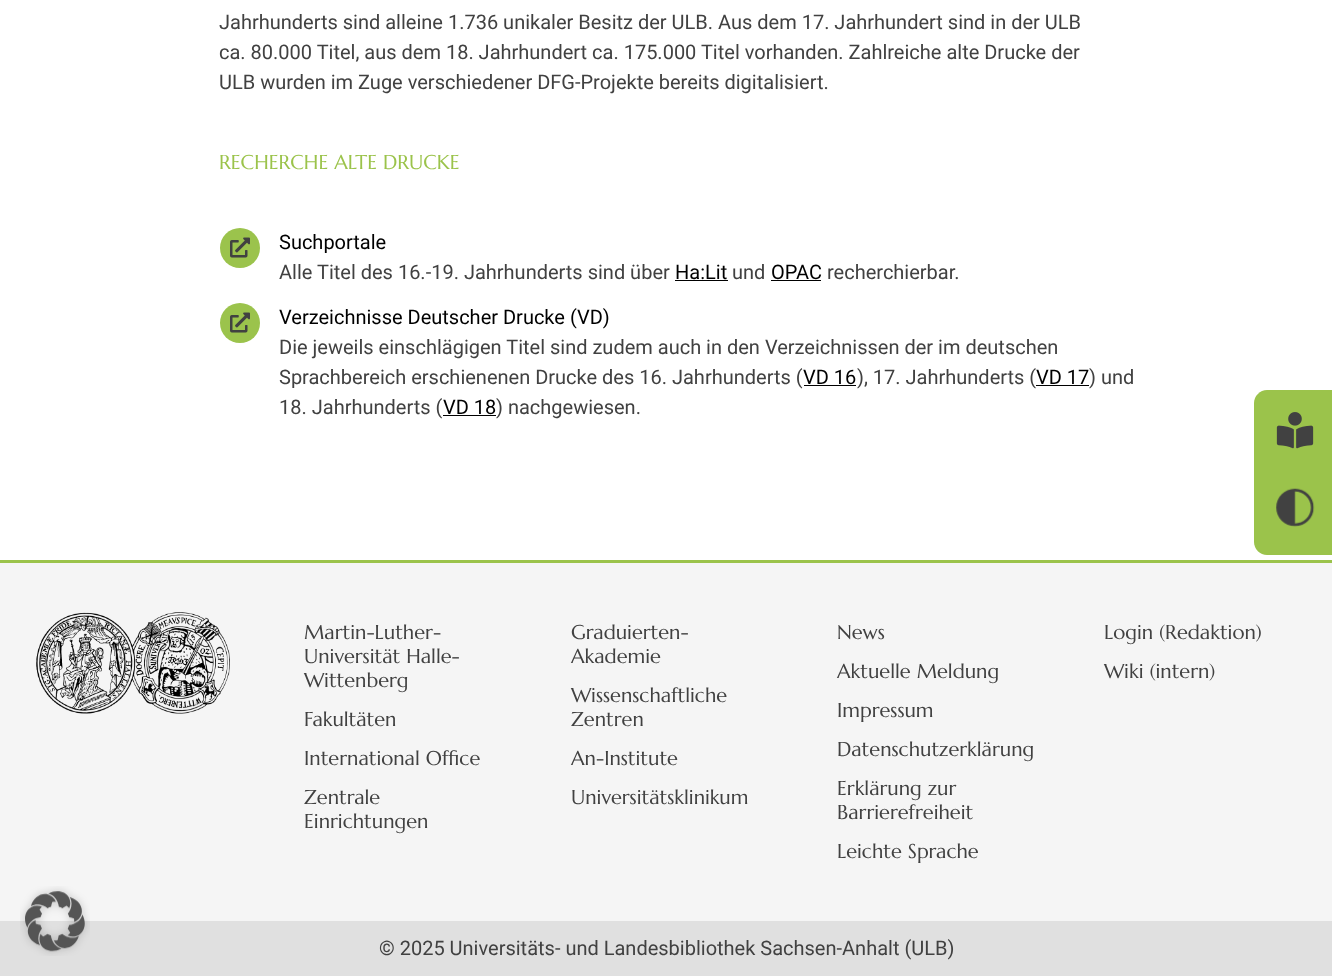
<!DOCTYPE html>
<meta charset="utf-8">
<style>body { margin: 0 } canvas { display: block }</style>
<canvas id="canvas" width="1332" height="976"></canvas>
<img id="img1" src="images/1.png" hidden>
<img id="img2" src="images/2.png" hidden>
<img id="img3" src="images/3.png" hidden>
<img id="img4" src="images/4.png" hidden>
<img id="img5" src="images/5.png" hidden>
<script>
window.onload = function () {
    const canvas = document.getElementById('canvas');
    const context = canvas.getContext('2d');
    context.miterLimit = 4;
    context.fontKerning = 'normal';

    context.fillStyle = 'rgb(255, 255, 255)';
    context.fillRect(0, 0, 1332, 976);
    context.fillStyle = 'rgb(155, 195, 76)';
    context.beginPath();
    context.arc(240, 248, 20, 0, 2 * Math.PI);
    context.fill();
    context.drawImage(document.getElementById('img1'), 230, 237, 20, 21);
    context.fillStyle = 'rgb(0, 0, 0)';
    context.fillRect(675, 280, 53, 1);
    context.fillRect(771, 280, 50, 1);
    context.fillStyle = 'rgb(155, 195, 76)';
    context.beginPath();
    context.arc(240, 323, 20, 0, 2 * Math.PI);
    context.fill();
    context.drawImage(document.getElementById('img1'), 230, 312, 20, 21);
    context.fillStyle = 'rgb(0, 0, 0)';
    context.fillRect(804, 385, 52, 1);
    context.fillRect(1036, 385, 53, 1);
    context.fillRect(443, 415, 53, 1);
    context.fillStyle = 'rgb(245, 245, 245)';
    context.fillRect(0, 563, 1332, 358);
    context.fillStyle = 'rgb(224, 224, 224)';
    context.fillRect(0, 921, 1332, 55);
    context.drawImage(document.getElementById('img2'), 20, 886, 70, 70);
    context.fillStyle = 'rgb(155, 195, 75)';
    context.beginPath();
    context.moveTo(1267, 390);
    context.lineTo(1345, 390);
    context.lineTo(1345, 555);
    context.lineTo(1267, 555);
    context.bezierCurveTo(1260, 555, 1254, 549, 1254, 542);
    context.lineTo(1254, 403);
    context.bezierCurveTo(1254, 396, 1260, 390, 1267, 390);
    context.closePath();
    context.fill();
    context.drawImage(document.getElementById('img3'), 1276, 412, 38, 37);
    context.drawImage(document.getElementById('img4'), 1276, 488, 39, 39);
    context.fillRect(0, 560, 1332, 3);
    context.drawImage(document.getElementById('img5'), 36, 612, 194, 102);
    context.font = '20px Roboto';
    context.fillStyle = 'rgb(65, 65, 65)';
    context.fillText('Jahrhunderts sind alleine 1.736 unikaler Besitz der ULB. Aus dem 17. Jahrhundert sind in der ULB', 219, 29);
    context.fillText('ca. 80.000 Titel, aus dem 18. Jahrhundert ca. 175.000 Titel vorhanden. Zahlreiche alte Drucke der', 219, 59);
    context.fillText('ULB wurden im Zuge verschiedener DFG-Projekte bereits digitalisiert.', 219, 89);
    context.font = '20px Marcellus';
    context.fillStyle = 'rgb(155, 195, 75)';
    context.fillText('RECHERCHE ALTE DRUCKE', 219, 169);
    context.font = '20px Roboto';
    context.fillStyle = 'rgb(0, 0, 0)';
    context.fillText('Suchportale', 279, 249);
    context.fillStyle = 'rgb(65, 65, 65)';
    context.fillText('Alle Titel des 16.-19. Jahrhunderts sind über', 279, 279);
    context.fillStyle = 'rgb(0, 0, 0)';
    context.fillText('Ha:Lit', 675, 279);
    context.fillStyle = 'rgb(65, 65, 65)';
    context.fillText('und', 732, 279);
    context.fillStyle = 'rgb(0, 0, 0)';
    context.fillText('OPAC', 771, 279);
    context.fillStyle = 'rgb(65, 65, 65)';
    context.fillText('recherchierbar.', 827, 279);
    context.fillStyle = 'rgb(0, 0, 0)';
    context.fillText('Verzeichnisse Deutscher Drucke (VD)', 279, 324);
    context.fillStyle = 'rgb(65, 65, 65)';
    context.fillText('Die jeweils einschlägigen Titel sind zudem auch in den Verzeichnissen der im deutschen', 279, 354);
    context.fillText('Sprachbereich erschienenen Drucke des 16. Jahrhunderts (', 279, 384);
    context.fillStyle = 'rgb(0, 0, 0)';
    context.fillText('VD 16', 803, 384);
    context.fillStyle = 'rgb(65, 65, 65)';
    context.fillText('), 17. Jahrhunderts (', 857, 384);
    context.fillStyle = 'rgb(0, 0, 0)';
    context.fillText('VD 17', 1036, 384);
    context.fillStyle = 'rgb(65, 65, 65)';
    context.fillText(') und', 1089, 384);
    context.fillText('18. Jahrhunderts (', 279, 414);
    context.fillStyle = 'rgb(0, 0, 0)';
    context.fillText('VD 18', 443, 414);
    context.fillStyle = 'rgb(65, 65, 65)';
    context.fillText(') nachgewiesen.', 496, 414);
    context.font = '20px Marcellus';
    context.fillText('Martin-Luther-', 304, 639);
    context.fillText('Universität Halle-', 304, 663);
    context.fillText('Wittenberg', 304, 687);
    context.fillText('Fakultäten', 304, 726);
    context.fillText('International Office', 304, 765);
    context.fillText('Zentrale', 304, 804);
    context.fillText('Einrichtungen', 304, 828);
    context.fillText('Graduierten-', 571, 639);
    context.fillText('Akademie', 571, 663);
    context.fillText('Wissenschaftliche', 571, 702);
    context.fillText('Zentren', 571, 726);
    context.fillText('An-Institute', 571, 765);
    context.fillText('Universitätsklinikum', 571, 804);
    context.fillText('News', 837, 639);
    context.fillText('Aktuelle Meldung', 837, 678);
    context.fillText('Impressum', 837, 717);
    context.fillText('Datenschutzerklärung', 837, 756);
    context.fillText('Erklärung zur', 837, 795);
    context.fillText('Barrierefreiheit', 837, 819);
    context.fillText('Leichte Sprache', 837, 858);
    context.fillText('Login (Redaktion)', 1104, 639);
    context.fillText('Wiki (intern)', 1104, 678);
    context.font = '20px Roboto';
    context.fillText('© 2025 Universitäts- und Landesbibliothek Sachsen-Anhalt (ULB)', 379, 955);
};
</script>
